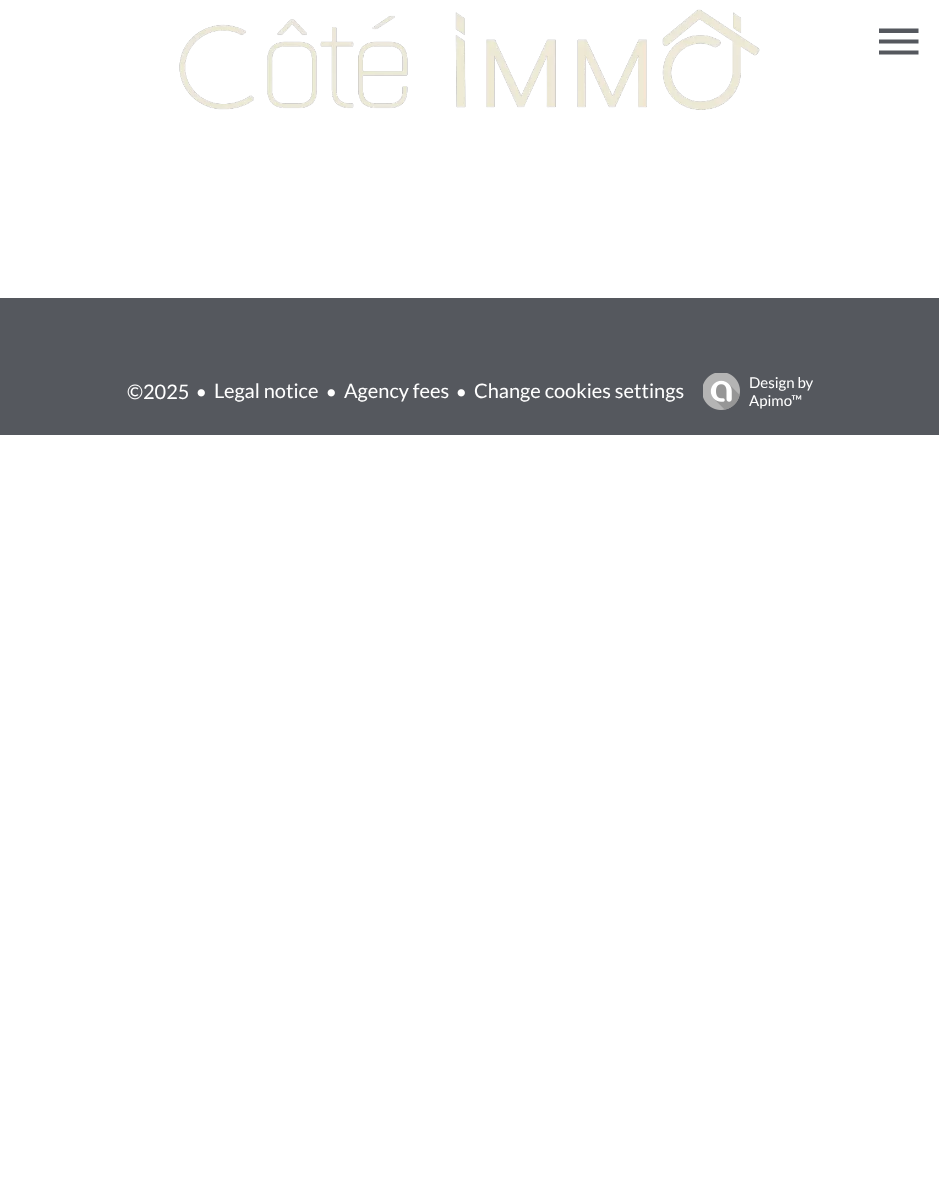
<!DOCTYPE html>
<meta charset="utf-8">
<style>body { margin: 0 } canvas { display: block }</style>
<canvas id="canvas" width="939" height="1204"></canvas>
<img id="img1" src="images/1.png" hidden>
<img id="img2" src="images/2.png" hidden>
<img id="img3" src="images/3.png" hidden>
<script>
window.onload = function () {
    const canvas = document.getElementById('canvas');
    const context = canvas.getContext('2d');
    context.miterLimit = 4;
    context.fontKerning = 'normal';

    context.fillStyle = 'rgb(255, 255, 255)';
    context.fillRect(0, 0, 939, 1204);
    context.drawImage(document.getElementById('img1'), 179, 9, 581, 101);
    context.fillStyle = 'rgb(85, 88, 94)';
    context.beginPath();
    context.moveTo(879, 28.5);
    context.lineTo(918.5, 28.5);
    context.lineTo(918.5, 33);
    context.lineTo(879, 33);
    context.closePath();
    context.moveTo(879, 39.5);
    context.lineTo(918.5, 39.5);
    context.lineTo(918.5, 43.5);
    context.lineTo(879, 43.5);
    context.closePath();
    context.moveTo(879, 50.5);
    context.lineTo(918.5, 50.5);
    context.lineTo(918.5, 54.5);
    context.lineTo(879, 54.5);
    context.closePath();
    context.fill();
    context.fillRect(0, 298, 939, 137);
    context.drawImage(document.getElementById('img2'), 197, 389, 8, 8);
    context.drawImage(document.getElementById('img2'), 327, 389, 8, 8);
    context.drawImage(document.getElementById('img2'), 457, 389, 8, 8);
    context.drawImage(document.getElementById('img3'), 703, 373, 37, 37);
    context.font = '20px Lato';
    context.fillStyle = 'rgb(255, 255, 255)';
    context.fillText('©2025', 127, 399);
    context.fillText('Legal notice', 214, 398);
    context.fillText('Agency fees', 344, 398);
    context.fillText('Change cookies settings', 474, 398);
    context.font = '15px Lato';
    context.fillText('Design by', 749, 388);
    context.fillText('Apimo™', 749, 406);
};
</script>
